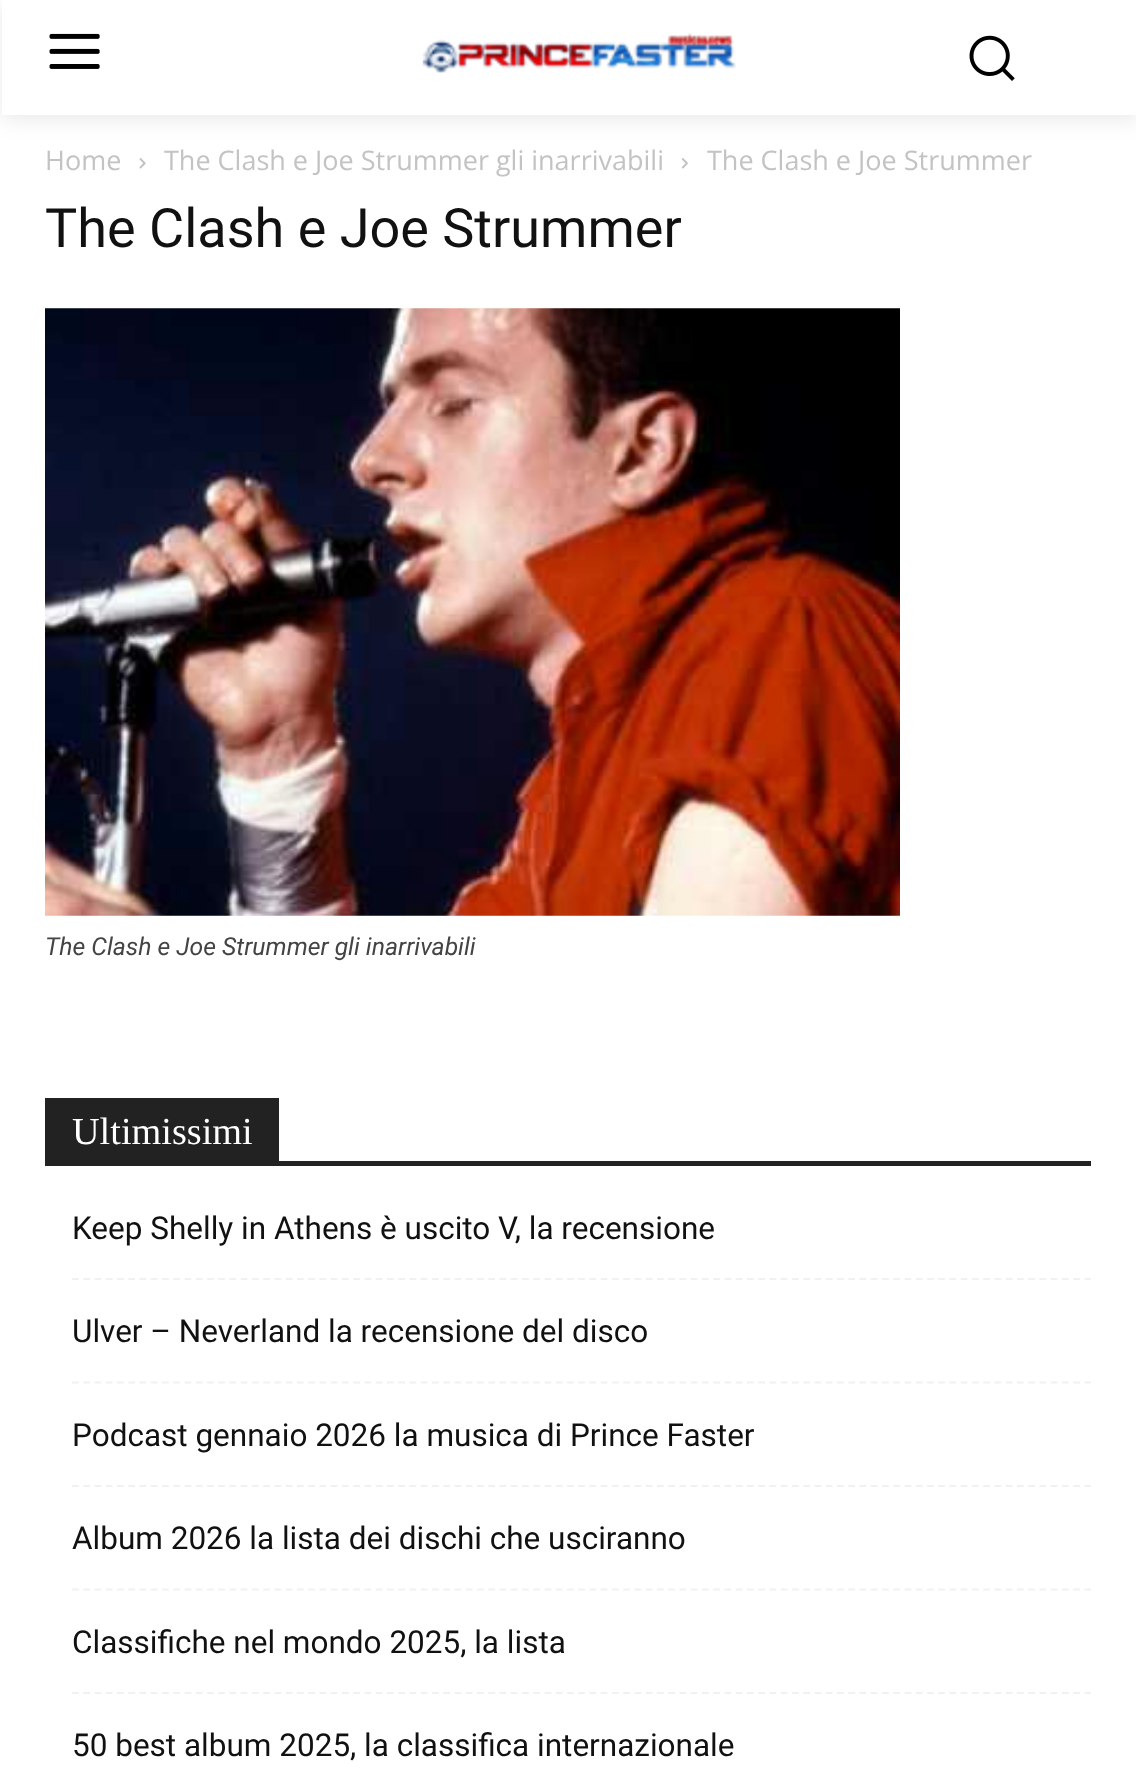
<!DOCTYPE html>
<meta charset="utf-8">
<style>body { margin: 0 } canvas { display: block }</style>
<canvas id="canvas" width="1136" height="1790"></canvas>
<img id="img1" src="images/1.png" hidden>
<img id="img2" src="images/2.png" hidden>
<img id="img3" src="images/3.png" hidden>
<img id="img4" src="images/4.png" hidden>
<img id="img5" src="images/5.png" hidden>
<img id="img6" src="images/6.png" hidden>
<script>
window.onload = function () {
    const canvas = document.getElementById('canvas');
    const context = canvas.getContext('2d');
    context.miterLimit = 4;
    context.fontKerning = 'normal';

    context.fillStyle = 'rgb(255, 255, 255)';
    context.fillRect(0, 0, 1136, 1790);
    context.drawImage(document.getElementById('img1'), 49, 33, 51, 36);
    context.drawImage(document.getElementById('img2'), 422, 33, 314, 40);
    context.drawImage(document.getElementById('img3'), 969, 35, 46, 46);
    context.save();
    context.beginPath();
    context.moveTo(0, 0);
    context.lineTo(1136, 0);
    context.lineTo(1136, 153);
    context.lineTo(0, 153);
    context.closePath();
    context.moveTo(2, 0);
    context.lineTo(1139, 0);
    context.lineTo(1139, 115);
    context.lineTo(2, 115);
    context.closePath();
    context.clip('evenodd');
    context.fillStyle = 'rgba(0, 0, 0, 0.09)';
    context.filter = 'blur(11px)';
    context.beginPath();
    context.rect(2, 5, 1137, 114);
    context.fill();
    context.filter = 'none';
    context.restore();
    context.drawImage(document.getElementById('img4'), 139, 158, 7, 11);
    context.drawImage(document.getElementById('img5'), 681, 158, 7, 11);
    context.drawImage(document.getElementById('img6'), 45, 308, 855, 608);
    context.fillStyle = 'rgb(34, 34, 34)';
    context.fillRect(45, 1161, 1046, 5);
    context.fillRect(45, 1098, 234, 63);
    context.beginPath();
    context.moveTo(72, 1279);
    context.lineTo(1091, 1279);
    context.strokeStyle = 'rgb(241, 241, 241)';
    context.lineWidth = 2.2;
    context.setLineDash([6.75, 4.5]);
    context.stroke();
    context.beginPath();
    context.moveTo(72, 1382.5);
    context.lineTo(1091, 1382.5);
    context.stroke();
    context.beginPath();
    context.moveTo(72, 1486);
    context.lineTo(1091, 1486);
    context.stroke();
    context.beginPath();
    context.moveTo(72, 1589.5);
    context.lineTo(1091, 1589.5);
    context.stroke();
    context.beginPath();
    context.moveTo(72, 1693);
    context.lineTo(1091, 1693);
    context.stroke();
    context.font = '27px Open Sans';
    context.fillStyle = 'rgb(195, 195, 195)';
    context.fillText('Home', 45, 170);
    context.fillText('The Clash e Joe Strummer gli inarrivabili', 164, 170);
    context.fillText('The Clash e Joe Strummer', 707, 170);
    context.font = '54px Roboto';
    context.fillStyle = 'rgb(17, 17, 17)';
    context.fillText('The Clash e Joe Strummer', 45, 247);
    context.font = 'italic 24.75px Roboto';
    context.fillStyle = 'rgb(68, 68, 68)';
    context.fillText('The Clash e Joe Strummer gli inarrivabili', 45, 955);
    context.font = '38.25px Liberation Serif';
    context.fillStyle = 'rgb(255, 255, 255)';
    context.fillText('Ultimissimi', 72, 1144);
    context.font = '31.5px Roboto';
    context.fillStyle = 'rgb(17, 17, 17)';
    context.fillText('Keep Shelly in Athens è uscito V, la recensione', 72, 1239);
    context.fillText('Ulver – Neverland la recensione del disco', 72, 1342);
    context.fillText('Podcast gennaio 2026 la musica di Prince Faster', 72, 1446);
    context.fillText('Album 2026 la lista dei dischi che usciranno', 72, 1549);
    context.fillText('Classifiche nel mondo 2025, la lista', 72, 1653);
    context.fillText('50 best album 2025, la classifica internazionale', 72, 1756);
};
</script>
